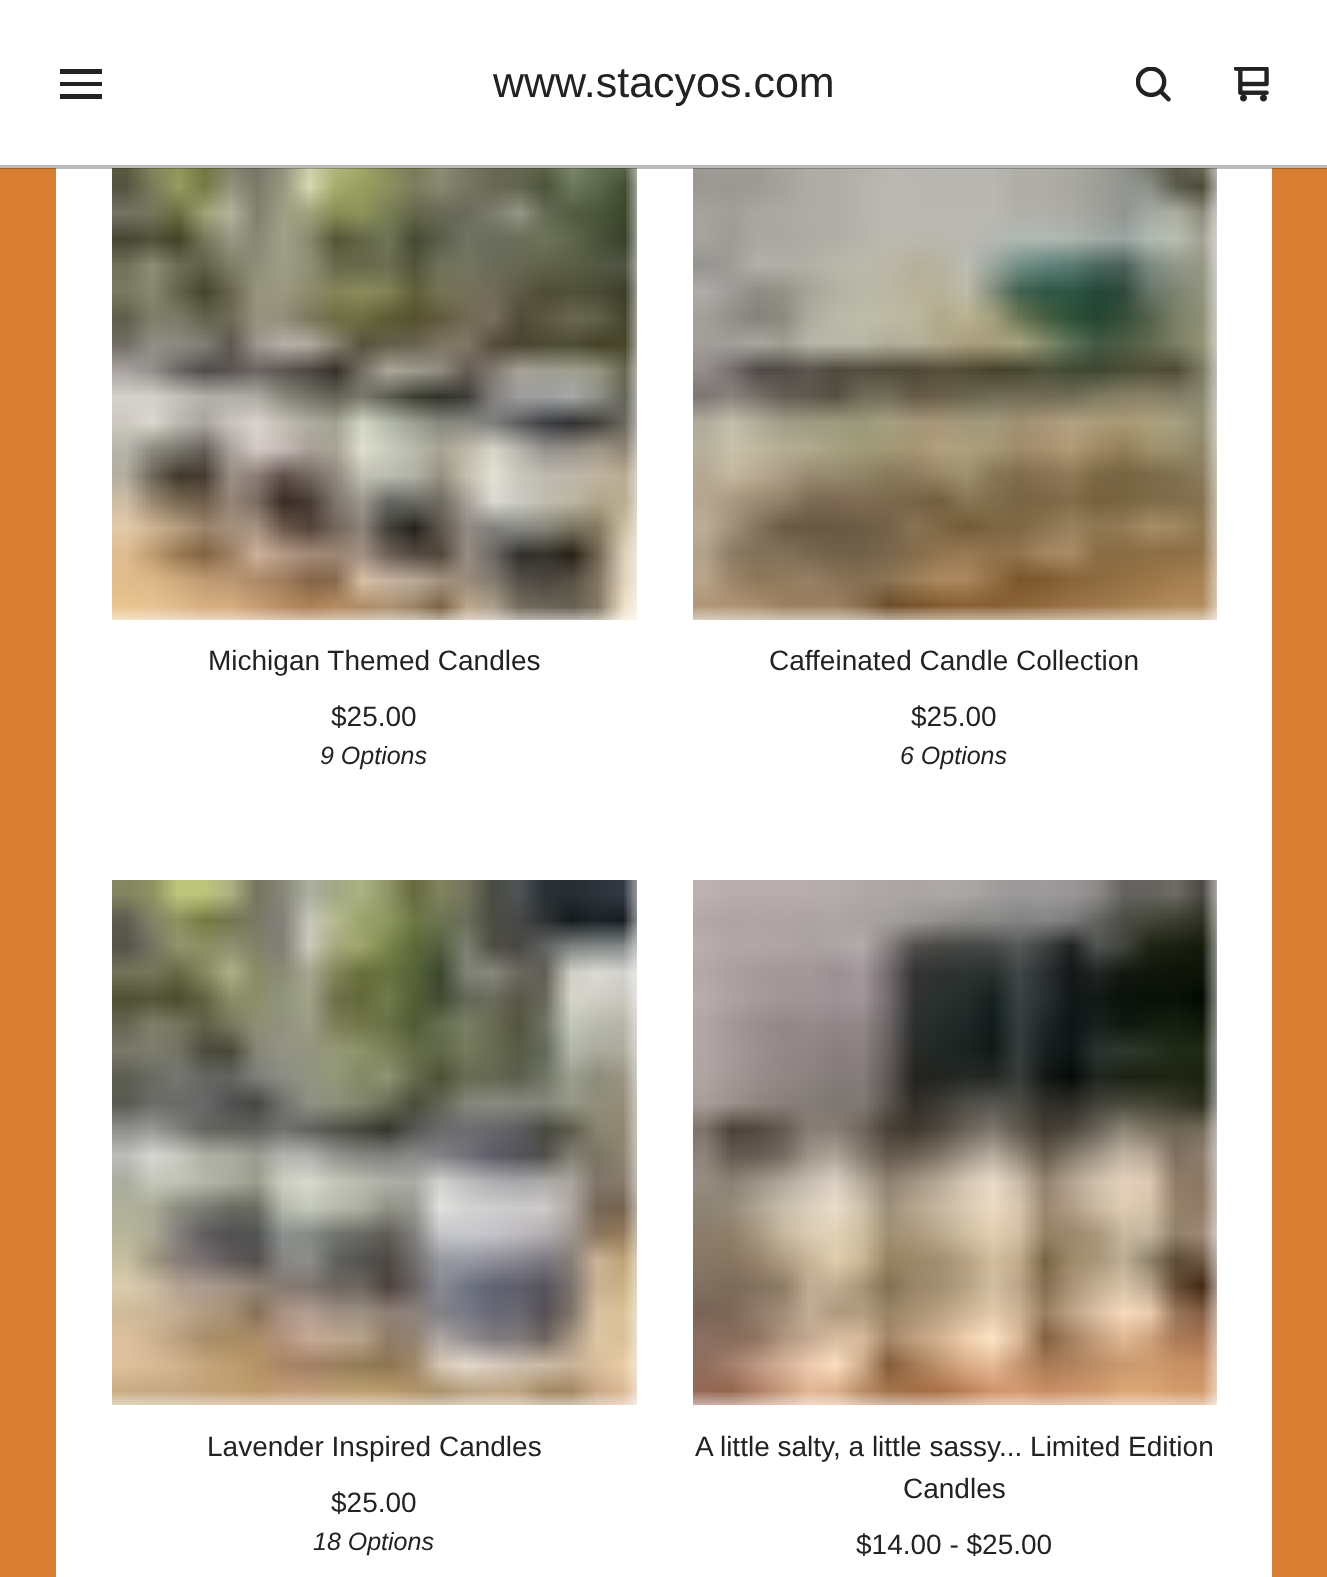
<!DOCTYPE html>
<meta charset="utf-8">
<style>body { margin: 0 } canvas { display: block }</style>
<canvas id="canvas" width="1327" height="1577"></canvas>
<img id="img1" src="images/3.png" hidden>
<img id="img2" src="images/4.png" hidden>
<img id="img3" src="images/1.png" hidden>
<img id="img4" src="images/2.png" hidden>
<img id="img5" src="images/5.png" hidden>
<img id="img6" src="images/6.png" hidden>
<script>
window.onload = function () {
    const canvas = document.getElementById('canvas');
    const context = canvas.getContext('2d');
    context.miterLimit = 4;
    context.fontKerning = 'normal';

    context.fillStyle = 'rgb(216, 126, 50)';
    context.fillRect(0, 0, 1327, 1577);
    context.fillStyle = 'rgb(255, 255, 255)';
    context.fillRect(0, 0, 1327, 168);
    context.fillRect(56, 168, 1216, 1409);
    context.drawImage(document.getElementById('img1'), 112, 168, 525, 452);
    context.drawImage(document.getElementById('img2'), 693, 168, 524, 452);
    context.fillStyle = 'rgba(34, 34, 34, 0.3)';
    context.fillRect(0, 165, 1327, 4);
    context.fillStyle = 'rgb(34, 34, 34)';
    context.beginPath();
    context.moveTo(60, 69);
    context.lineTo(60, 74);
    context.lineTo(102, 74);
    context.lineTo(102, 69);
    context.closePath();
    context.moveTo(60, 82);
    context.lineTo(60, 86);
    context.lineTo(102, 86);
    context.lineTo(102, 82);
    context.closePath();
    context.moveTo(60, 94);
    context.lineTo(60, 99);
    context.lineTo(102, 99);
    context.lineTo(102, 94);
    context.closePath();
    context.fill();
    context.drawImage(document.getElementById('img3'), 1136, 67, 35, 35);
    context.drawImage(document.getElementById('img4'), 1234, 67, 35, 35);
    context.drawImage(document.getElementById('img5'), 112, 880, 525, 525);
    context.drawImage(document.getElementById('img6'), 693, 880, 524, 525);
    context.font = '43px Liberation Sans';
    context.fillText('www.stacyos.com', 493, 97);
    context.font = '28px Liberation Sans';
    context.fillText('Michigan Themed Candles', 208, 670);
    context.fillText('$25.00', 331, 726);
    context.font = 'italic 25px Liberation Sans';
    context.fillText('9 Options', 320, 764);
    context.font = '28px Liberation Sans';
    context.fillText('Caffeinated Candle Collection', 769, 670);
    context.fillText('$25.00', 911, 726);
    context.font = 'italic 25px Liberation Sans';
    context.fillText('6 Options', 900, 764);
    context.font = '28px Liberation Sans';
    context.fillText('Lavender Inspired Candles', 207, 1456);
    context.fillText('$25.00', 331, 1512);
    context.font = 'italic 25px Liberation Sans';
    context.fillText('18 Options', 313, 1550);
    context.font = '28px Liberation Sans';
    context.fillText('A little salty, a little sassy... Limited Edition', 695, 1456);
    context.fillText('Candles', 903, 1498);
    context.fillText('$14.00 - $25.00', 856, 1554);
};
</script>
